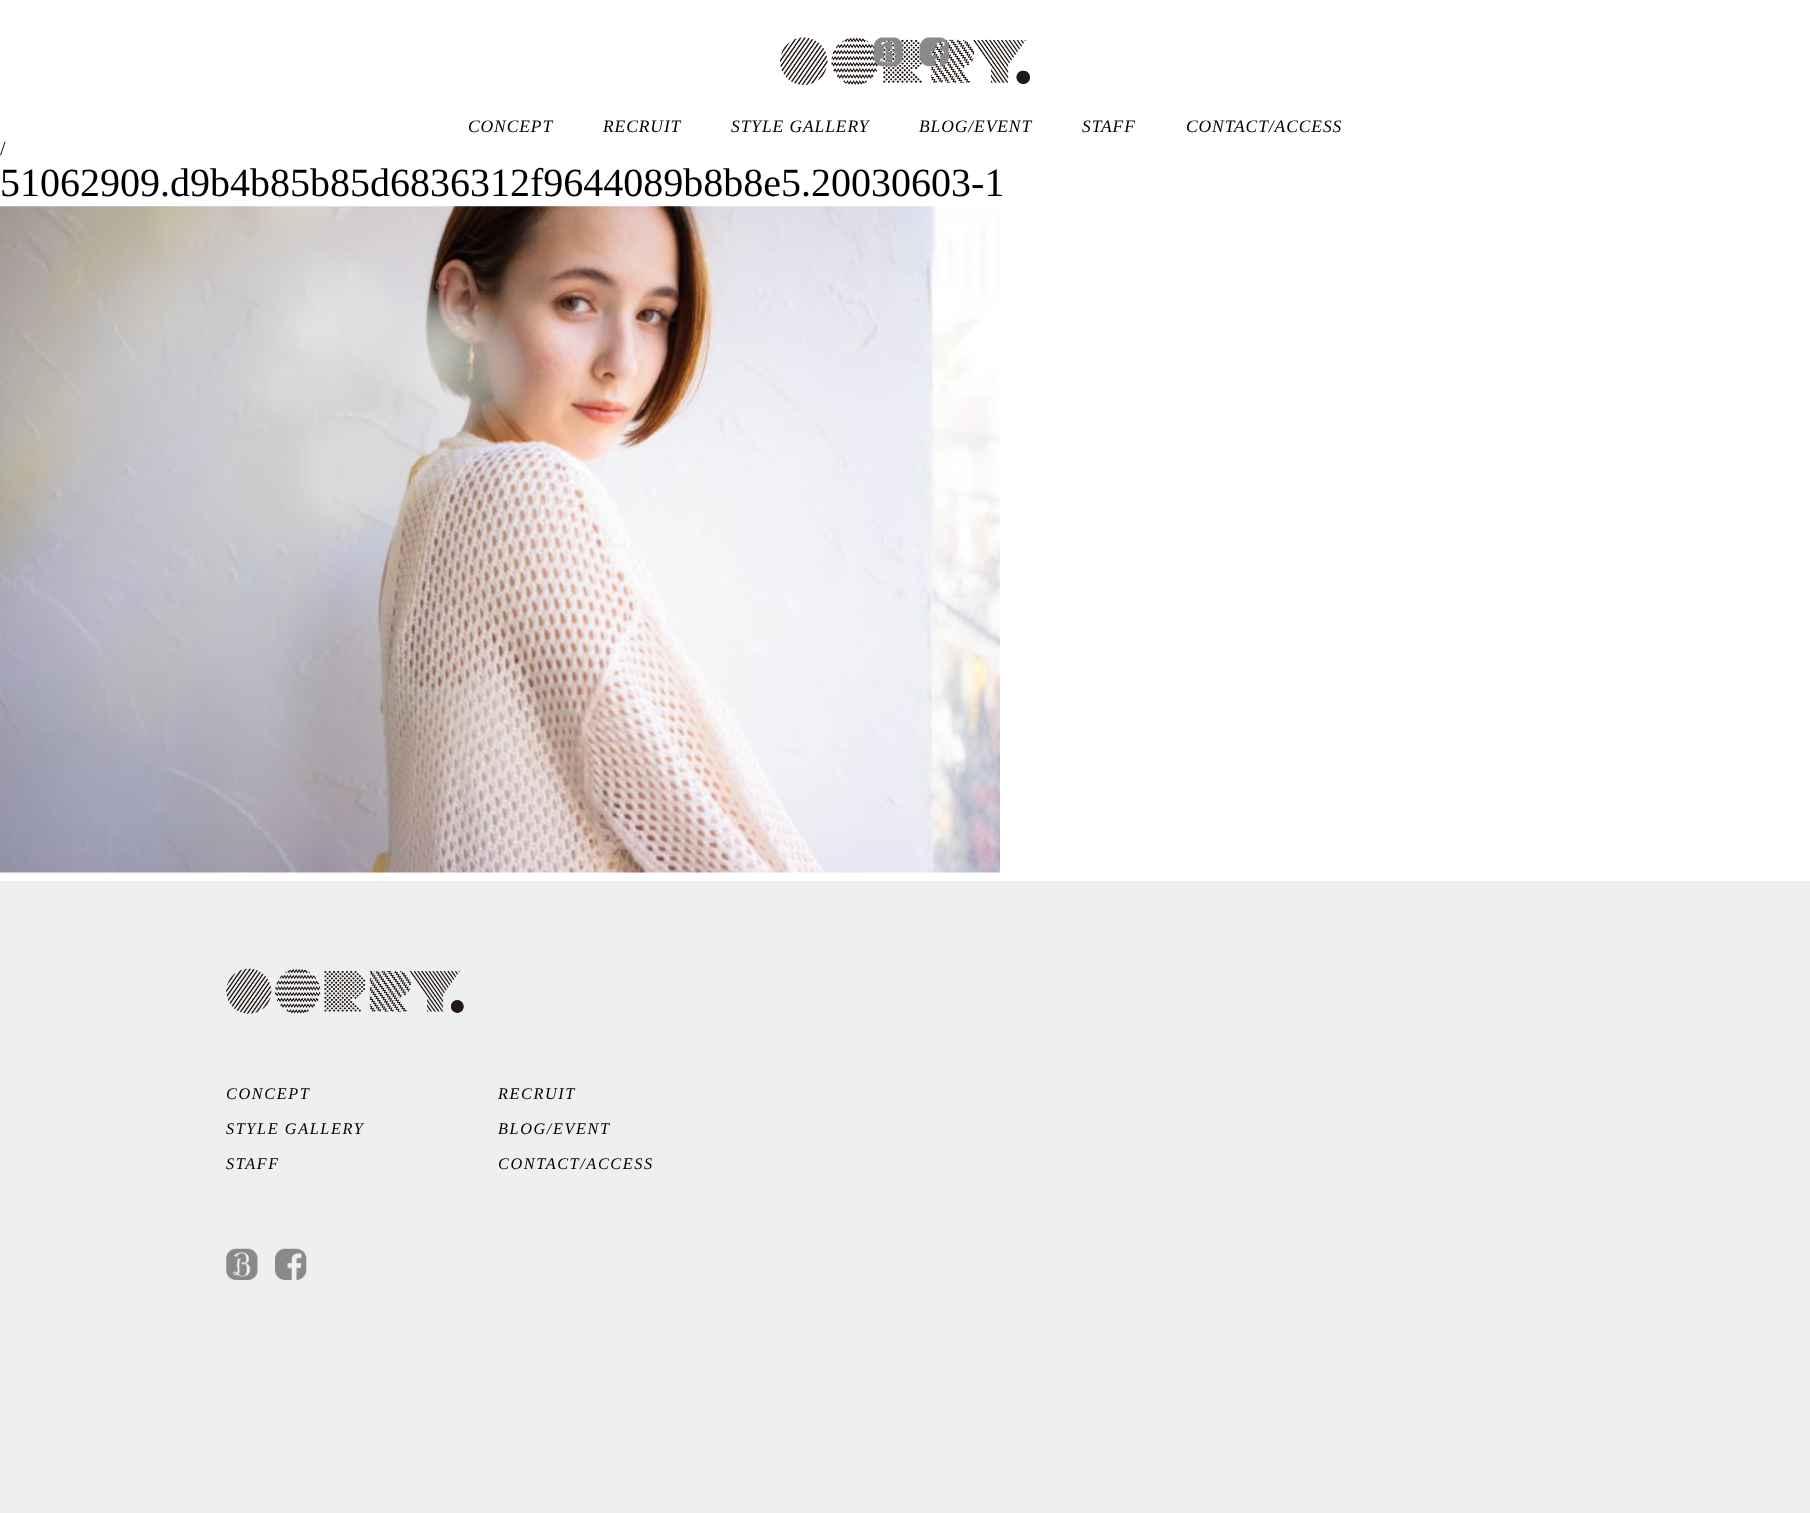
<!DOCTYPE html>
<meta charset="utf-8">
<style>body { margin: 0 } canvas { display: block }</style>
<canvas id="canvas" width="1810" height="1513"></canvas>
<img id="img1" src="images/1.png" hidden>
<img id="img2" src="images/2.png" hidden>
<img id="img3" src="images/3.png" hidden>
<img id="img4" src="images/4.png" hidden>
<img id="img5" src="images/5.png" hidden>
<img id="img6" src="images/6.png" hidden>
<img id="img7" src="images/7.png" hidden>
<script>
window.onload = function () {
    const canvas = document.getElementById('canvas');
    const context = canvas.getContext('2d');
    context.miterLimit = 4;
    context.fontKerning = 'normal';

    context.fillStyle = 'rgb(255, 255, 255)';
    context.fillRect(0, 0, 1810, 1513);
    context.drawImage(document.getElementById('img1'), 780, 37, 250, 48);
    context.drawImage(document.getElementById('img2'), 873, 37, 30, 30);
    context.drawImage(document.getElementById('img3'), 920, 37, 29, 30);
    context.drawImage(document.getElementById('img4'), 0, 206, 1000, 667);
    context.fillStyle = 'rgb(238, 239, 239)';
    context.fillRect(0, 881, 1810, 632);
    context.drawImage(document.getElementById('img5'), 226, 968, 238, 46);
    context.drawImage(document.getElementById('img6'), 226, 1248, 32, 32);
    context.drawImage(document.getElementById('img7'), 275, 1248, 32, 32);
    context.letterSpacing = '0.9px';
    context.font = 'italic 17.5px Liberation Serif';
    context.fillStyle = 'rgb(0, 0, 0)';
    context.fillText('CONCEPT', 468, 132);
    context.fillText('RECRUIT', 603, 132);
    context.fillText('STYLE GALLERY', 731, 132);
    context.fillText('BLOG/EVENT', 919, 132);
    context.fillText('STAFF', 1082, 132);
    context.fillText('CONTACT/ACCESS', 1186, 132);
    context.letterSpacing = '0px';
    context.font = '20px Liberation Serif';
    context.fillText('/', 0, 155);
    context.font = '40px Liberation Serif';
    context.fillText('51062909.d9b4b85b85d6836312f9644089b8b8e5.20030603-1', 0, 196);
    context.letterSpacing = '1.6px';
    context.font = 'italic 16.25px Liberation Serif';
    context.fillText('CONCEPT', 226, 1099);
    context.fillText('RECRUIT', 498, 1099);
    context.fillText('STYLE GALLERY', 226, 1134);
    context.fillText('BLOG/EVENT', 498, 1134);
    context.fillText('STAFF', 226, 1169);
    context.fillText('CONTACT/ACCESS', 498, 1169);
};
</script>
